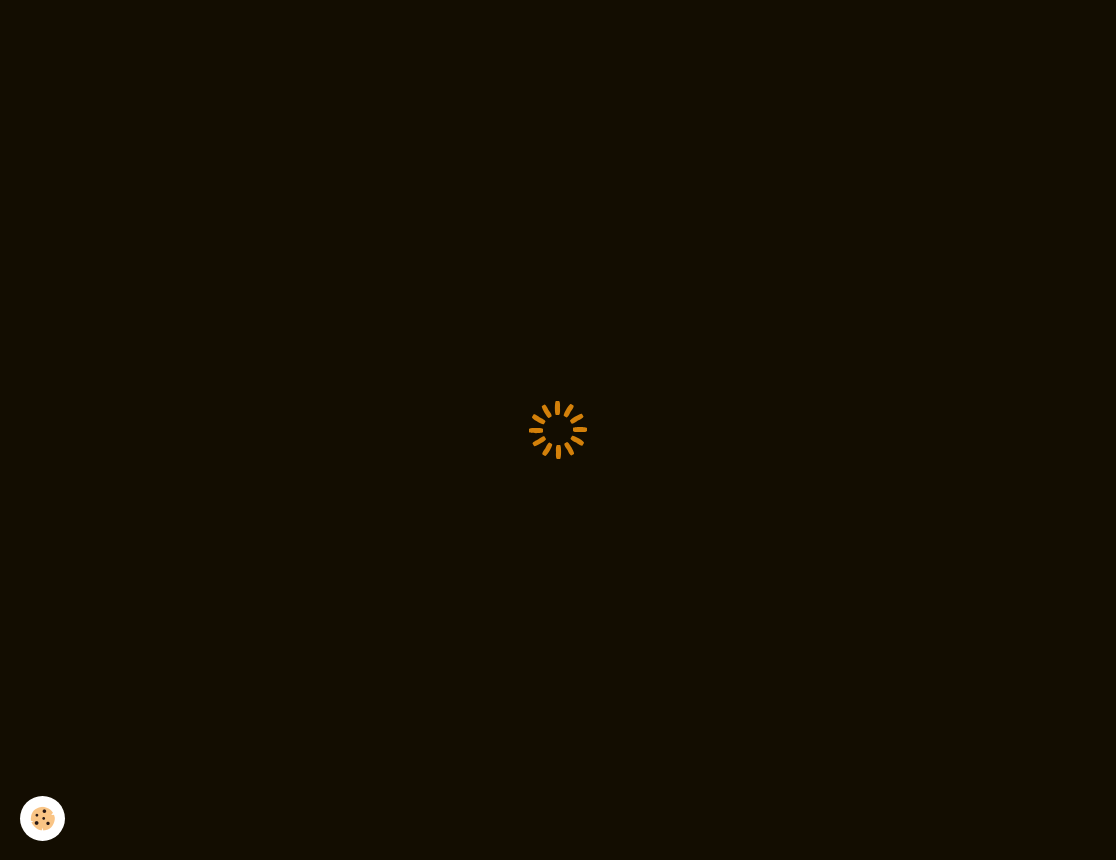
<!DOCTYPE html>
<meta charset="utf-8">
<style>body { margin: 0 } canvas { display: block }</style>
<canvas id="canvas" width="1116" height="860"></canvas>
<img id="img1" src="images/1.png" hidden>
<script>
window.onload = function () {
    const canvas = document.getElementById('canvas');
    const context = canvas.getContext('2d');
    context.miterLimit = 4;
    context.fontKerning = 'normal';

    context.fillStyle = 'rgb(19, 13, 1)';
    context.fillRect(0, 0, 1116, 860);
    context.fillStyle = 'rgb(211, 128, 10)';
    context.beginPath();
    context.moveTo(556, 401);
    context.lineTo(559, 401);
    context.bezierCurveTo(560.5, 402, 560, 407, 560, 408);
    context.bezierCurveTo(560, 409, 560.5, 414, 559, 415);
    context.lineTo(556, 415);
    context.bezierCurveTo(554.5, 415, 554.5, 401, 556, 401);
    context.closePath();
    context.moveTo(571, 404);
    context.lineTo(573.5, 405.5);
    context.bezierCurveTo(574.5, 407, 571, 411, 570.5, 412);
    context.bezierCurveTo(570, 413, 568, 417.5, 566.5, 417.5);
    context.lineTo(564, 416);
    context.bezierCurveTo(562.5, 415, 569.5, 403, 571, 404);
    context.closePath();
    context.fill();
    context.beginPath();
    context.moveTo(582, 414);
    context.lineTo(583.5, 416.5);
    context.bezierCurveTo(583.5, 418, 579, 420, 578, 420.5);
    context.bezierCurveTo(577, 421, 573, 424.5, 571.5, 423.5);
    context.lineTo(570, 421);
    context.bezierCurveTo(569.5, 419.5, 581.5, 412.5, 582, 414);
    context.closePath();
    context.moveTo(587, 428);
    context.lineTo(587, 431);
    context.bezierCurveTo(586, 432.5, 581, 432, 580, 432);
    context.bezierCurveTo(579, 432, 574, 432.5, 573, 431);
    context.lineTo(573, 428);
    context.bezierCurveTo(573, 426.5, 587, 426.5, 587, 428);
    context.closePath();
    context.moveTo(584, 443);
    context.lineTo(582.5, 445.5);
    context.bezierCurveTo(581, 446.5, 577, 443, 576, 442.5);
    context.bezierCurveTo(575, 442, 570.5, 440, 570.5, 438.5);
    context.lineTo(572, 436);
    context.bezierCurveTo(573, 434.5, 585, 441.5, 584, 443);
    context.closePath();
    context.fill();
    context.beginPath();
    context.moveTo(574, 454);
    context.lineTo(571.5, 455.5);
    context.bezierCurveTo(570, 455.5, 568, 451, 567.5, 450);
    context.bezierCurveTo(567, 449, 563.5, 445, 564.5, 443.5);
    context.lineTo(567, 442);
    context.bezierCurveTo(568.5, 441.5, 575.5, 453.5, 574, 454);
    context.closePath();
    context.moveTo(560, 459);
    context.lineTo(557, 459);
    context.bezierCurveTo(555.5, 458, 556, 453, 556, 452);
    context.bezierCurveTo(556, 451, 555.5, 446, 557, 445);
    context.lineTo(560, 445);
    context.bezierCurveTo(561.5, 445, 561.5, 459, 560, 459);
    context.closePath();
    context.moveTo(545, 456);
    context.lineTo(542.5, 454.5);
    context.bezierCurveTo(541.5, 453, 545, 449, 545.5, 448);
    context.bezierCurveTo(546, 447, 548, 442.5, 549.5, 442.5);
    context.lineTo(552, 444);
    context.bezierCurveTo(553.5, 445, 546.5, 457, 545, 456);
    context.closePath();
    context.fill();
    context.beginPath();
    context.moveTo(534, 446);
    context.lineTo(532.5, 443.5);
    context.bezierCurveTo(532.5, 442, 537, 440, 538, 439.5);
    context.bezierCurveTo(539, 439, 543, 435.5, 544.5, 436.5);
    context.lineTo(546, 439);
    context.bezierCurveTo(546.5, 440.5, 534.5, 447.5, 534, 446);
    context.closePath();
    context.moveTo(529, 432);
    context.lineTo(529, 429);
    context.bezierCurveTo(530, 427.5, 535, 428, 536, 428);
    context.bezierCurveTo(537, 428, 542, 427.5, 543, 429);
    context.lineTo(543, 432);
    context.bezierCurveTo(543, 433.5, 529, 433.5, 529, 432);
    context.closePath();
    context.moveTo(532, 417);
    context.lineTo(533.5, 414.5);
    context.bezierCurveTo(535, 413.5, 539, 417, 540, 417.5);
    context.bezierCurveTo(541, 418, 545.5, 420, 545.5, 421.5);
    context.lineTo(544, 424);
    context.bezierCurveTo(543, 425.5, 531, 418.5, 532, 417);
    context.closePath();
    context.fill();
    context.beginPath();
    context.moveTo(542, 406);
    context.lineTo(544.5, 404.5);
    context.bezierCurveTo(546, 404.5, 548, 409, 548.5, 410);
    context.bezierCurveTo(549, 411, 552.5, 415, 551.5, 416.5);
    context.lineTo(549, 418);
    context.bezierCurveTo(547.5, 418.5, 540.5, 406.5, 542, 406);
    context.closePath();
    context.fill();
    context.fillStyle = 'rgb(255, 255, 255)';
    context.beginPath();
    context.arc(42.5, 818.5, 22.5, 0, 2 * Math.PI);
    context.fill();
    context.drawImage(document.getElementById('img1'), 30, 806, 25, 25);
};
</script>
